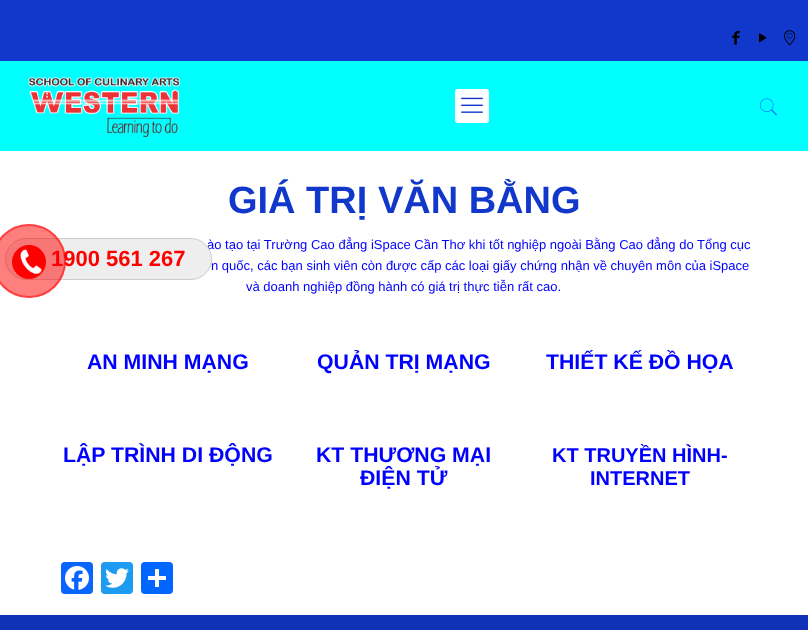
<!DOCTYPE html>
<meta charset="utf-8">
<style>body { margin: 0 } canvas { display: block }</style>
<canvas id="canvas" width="808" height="630"></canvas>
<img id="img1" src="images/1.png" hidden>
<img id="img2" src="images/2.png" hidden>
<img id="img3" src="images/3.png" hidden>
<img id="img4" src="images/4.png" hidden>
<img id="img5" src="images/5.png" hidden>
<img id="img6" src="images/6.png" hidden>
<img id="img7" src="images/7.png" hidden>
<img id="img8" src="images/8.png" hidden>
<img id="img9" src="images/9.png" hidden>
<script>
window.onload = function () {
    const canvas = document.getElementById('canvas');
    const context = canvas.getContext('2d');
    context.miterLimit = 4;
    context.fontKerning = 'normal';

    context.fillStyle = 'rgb(255, 255, 255)';
    context.fillRect(0, 0, 808, 630);
    context.fillStyle = 'rgb(18, 56, 203)';
    context.fillRect(0, 0, 808, 61);
    context.drawImage(document.getElementById('img1'), 732, 31, 8, 14);
    context.drawImage(document.getElementById('img2'), 759, 33, 8, 10);
    context.drawImage(document.getElementById('img3'), 784, 30, 12, 16);
    context.fillStyle = 'rgb(0, 255, 255)';
    context.fillRect(0, 61, 808, 90);
    context.drawImage(document.getElementById('img4'), 28, 77, 152, 60);
    context.fillStyle = 'rgb(255, 255, 255)';
    context.beginPath();
    context.roundRect(455, 89, 34, 34, 3);
    context.fill();
    context.drawImage(document.getElementById('img5'), 461, 97, 22, 16);
    context.drawImage(document.getElementById('img6'), 759, 98, 18, 18);
    context.fillStyle = 'rgb(8, 102, 255)';
    context.beginPath();
    context.roundRect(61, 562, 32, 32, 4);
    context.fill();
    context.drawImage(document.getElementById('img7'), 65, 566, 24, 24);
    context.fillStyle = 'rgb(29, 155, 240)';
    context.beginPath();
    context.roundRect(101, 562, 32, 32, 4);
    context.fill();
    context.drawImage(document.getElementById('img8'), 105, 568, 24, 20);
    context.fillStyle = 'rgb(1, 102, 255)';
    context.beginPath();
    context.roundRect(141, 562, 32, 32, 4);
    context.fill();
    context.fillStyle = 'rgb(255, 255, 255)';
    context.fillRect(155, 569, 4, 18);
    context.fillRect(148, 576, 18, 4);
    context.fillStyle = 'rgb(16, 50, 183)';
    context.fillRect(0, 615, 808, 15);
    context.font = 'bold 38px Liberation Sans';
    context.fillStyle = 'rgb(18, 56, 203)';
    context.fillText('GIÁ TRỊ VĂN BẰNG', 228, 213);
    context.font = '13px Liberation Sans';
    context.fillStyle = 'rgb(0, 0, 255)';
    context.fillText('ào tạo tại Trường Cao đẳng iSpace Cần Thơ khi tốt nghiệp ngoài Bằng Cao đẳng do Tổng cục', 207, 249);
    context.fillText('n quốc, các bạn sinh viên còn được cấp các loại giấy chứng nhận về chuyên môn của iSpace', 211, 270);
    context.fillText('và doanh nghiệp đồng hành có giá trị thực tiễn rất cao.', 246, 291);
    context.font = 'bold 21.25px Liberation Sans';
    context.fillText('AN MINH MẠNG', 87, 369);
    context.fillText('QUẢN TRỊ MẠNG', 317, 369);
    context.fillText('THIẾT KẾ ĐỒ HỌA', 546, 369);
    context.fillText('LẬP TRÌNH DI ĐỘNG', 63, 462);
    context.fillText('KT THƯƠNG MẠI', 316, 462);
    context.fillText('ĐIỆN TỬ', 360, 485);
    context.font = 'bold 20px Liberation Sans';
    context.fillText('KT TRUYỀN HÌNH-', 552, 462);
    context.fillText('INTERNET', 590, 485);
    context.fillStyle = 'rgb(238, 238, 238)';
    context.beginPath();
    context.roundRect(5.5, 238.5, 206, 41, 20.5);
    context.fill();
    context.strokeStyle = 'rgb(204, 204, 204)';
    context.stroke();
    context.font = 'bold 22px Liberation Sans';
    context.fillStyle = 'rgb(255, 0, 0)';
    context.fillText('1900 561 267', 51, 266);
    context.fillStyle = 'rgba(255, 0, 0, 0.5)';
    context.beginPath();
    context.arc(29, 261, 37, 0, 2 * Math.PI);
    context.fill();
    context.beginPath();
    context.arc(29, 261, 36, 0, 2 * Math.PI);
    context.strokeStyle = 'rgba(255, 0, 0, 0.5)';
    context.lineWidth = 2;
    context.stroke();
    context.fillStyle = 'rgb(255, 0, 0)';
    context.beginPath();
    context.arc(29, 262, 17, 0, 2 * Math.PI);
    context.fill();
    context.drawImage(document.getElementById('img9'), 20, 249, 22, 25);
};
</script>
